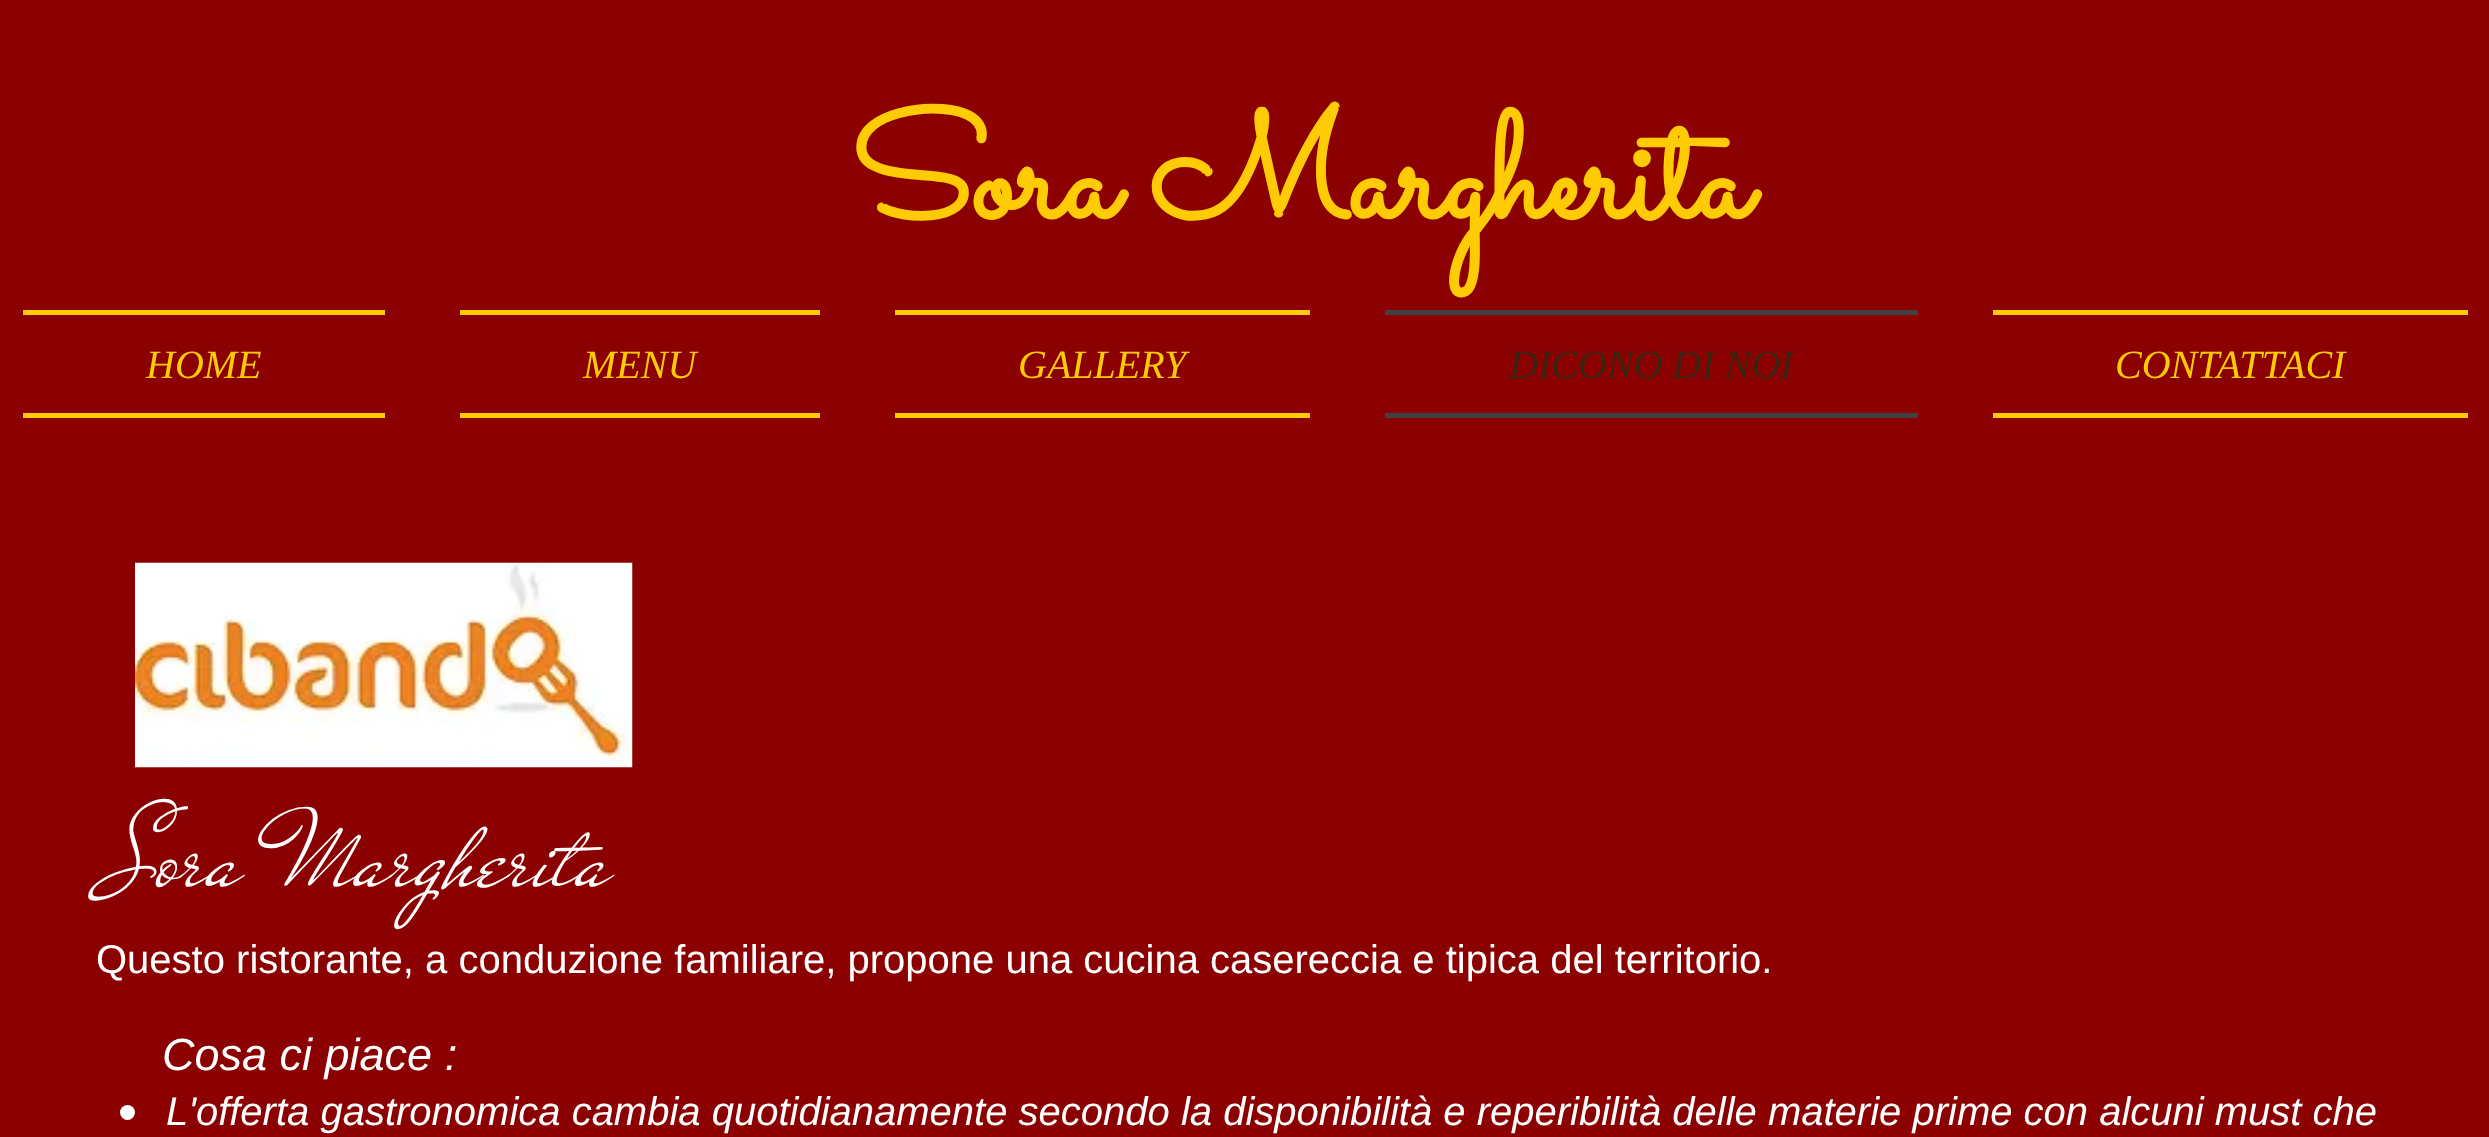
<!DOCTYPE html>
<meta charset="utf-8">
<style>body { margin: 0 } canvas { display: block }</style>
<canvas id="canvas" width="2489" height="1137"></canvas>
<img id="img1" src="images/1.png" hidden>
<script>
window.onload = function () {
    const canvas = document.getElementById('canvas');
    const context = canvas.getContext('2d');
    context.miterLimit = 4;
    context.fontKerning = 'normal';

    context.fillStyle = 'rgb(139, 0, 0)';
    context.fillRect(0, 0, 2489, 1137);
    context.fillStyle = 'rgb(255, 203, 5)';
    context.fillRect(23, 310, 362, 5);
    context.fillRect(23, 413, 362, 5);
    context.fillRect(460, 310, 360, 5);
    context.fillRect(460, 413, 360, 5);
    context.fillRect(895, 310, 415, 5);
    context.fillRect(895, 413, 415, 5);
    context.fillStyle = 'rgb(65, 65, 65)';
    context.fillRect(1385, 310, 533, 5);
    context.fillRect(1385, 413, 533, 5);
    context.fillStyle = 'rgb(255, 203, 5)';
    context.fillRect(1993, 310, 475, 5);
    context.fillRect(1993, 413, 475, 5);
    context.drawImage(document.getElementById('img1'), 135, 562, 498, 206);
    context.fillStyle = 'rgb(255, 255, 255)';
    context.beginPath();
    context.arc(127.5, 1112.5, 7.5, 0, 2 * Math.PI);
    context.fill();
    context.font = 'bold 150px Sacramento';
    context.fillStyle = 'rgb(255, 203, 5)';
    context.fillText('Sora Margherita', 849, 218);
    context.font = 'italic 40px Liberation Serif';
    context.fillText('HOME', 146, 378);
    context.fillText('MENU', 583, 378);
    context.fillText('GALLERY', 1018, 378);
    context.fillStyle = 'rgb(57, 36, 17)';
    context.fillText('DICONO DI NOI', 1509, 378);
    context.fillStyle = 'rgb(255, 203, 5)';
    context.fillText('CONTATTACI', 2115, 378);
    context.font = '112.5px Mr De Haviland';
    context.fillStyle = 'rgb(255, 255, 255)';
    context.fillText('Sora Margherita', 105, 885);
    context.font = '40px Liberation Sans';
    context.fillText('Questo ristorante, a conduzione familiare, propone una cucina casereccia e tipica del territorio.', 96, 973);
    context.font = 'italic 45px Liberation Sans';
    context.fillText('Cosa ci piace :', 162, 1070);
    context.font = 'italic 40px Liberation Sans';
    context.fillText('L\'offerta gastronomica cambia quotidianamente secondo la disponibilità e reperibilità delle materie prime con alcuni must che', 166, 1125);
};
</script>
